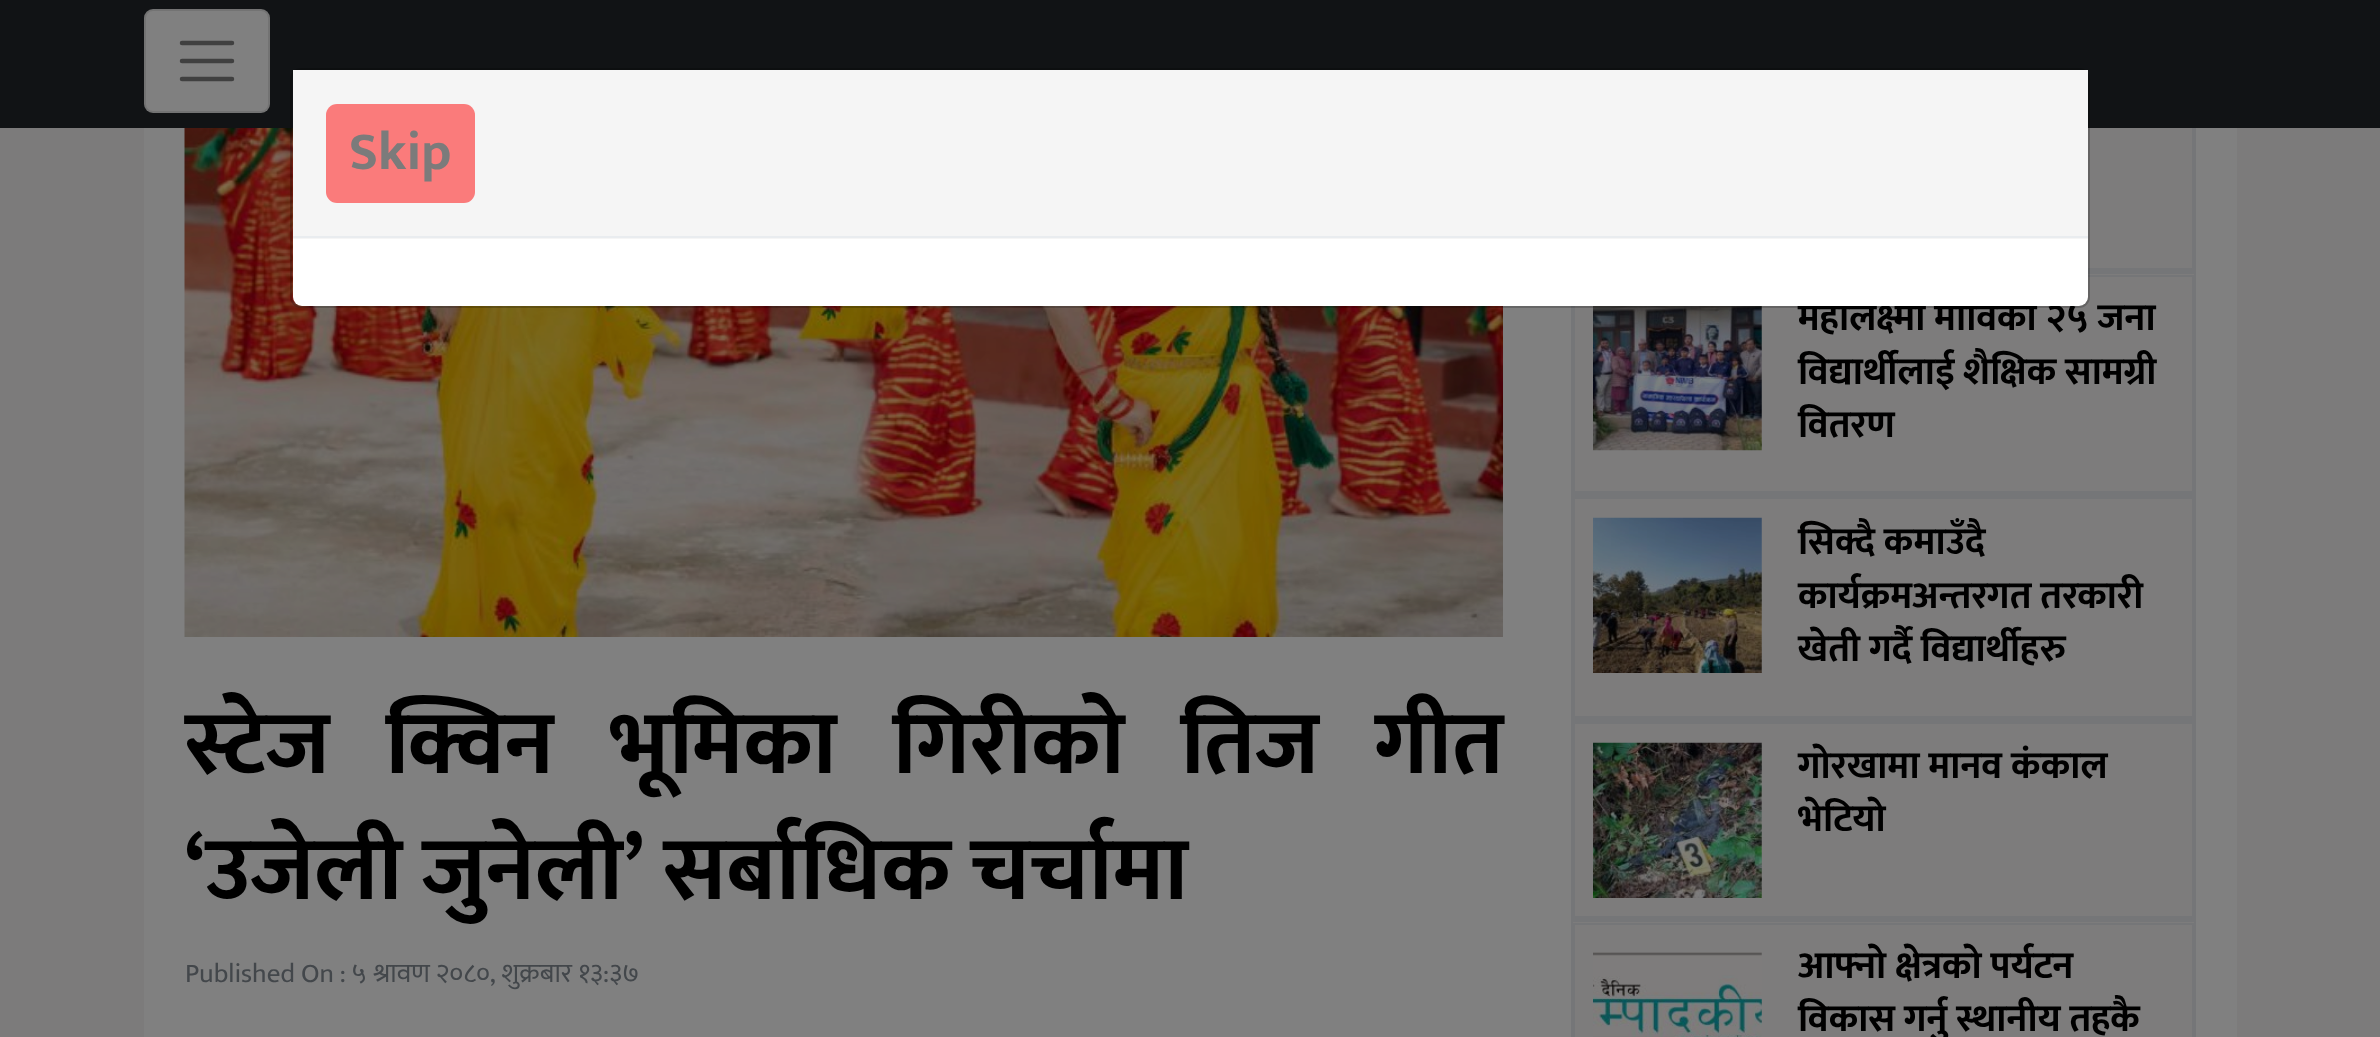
<!DOCTYPE html>
<meta charset="utf-8">
<style>body { margin: 0 } canvas { display: block }</style>
<canvas id="canvas" width="2380" height="1037"></canvas>
<img id="img1" src="images/1.png" hidden>
<img id="img2" src="images/2.png" hidden>
<img id="img3" src="images/3.png" hidden>
<img id="img4" src="images/4.png" hidden>
<img id="img5" src="images/5.png" hidden>
<script>
window.onload = function () {
    const canvas = document.getElementById('canvas');
    const context = canvas.getContext('2d');
    context.miterLimit = 4;
    context.fontKerning = 'normal';

    context.fillStyle = 'rgb(124, 123, 123)';
    context.fillRect(0, 0, 2380, 1037);
    context.fillStyle = 'rgb(128, 128, 128)';
    context.fillRect(144, 128, 2093, 909);
    context.fillStyle = 'rgb(125, 124, 124)';
    context.fillRect(1573, 128, 621, 909);
    context.strokeStyle = 'rgb(117, 118, 120)';
    context.lineWidth = 2;
    context.strokeRect(1572, 48, 623, 223);
    context.strokeRect(1574, 51, 619, 218);
    context.fillStyle = 'rgb(17, 19, 21)';
    context.fillRect(0, 0, 2380, 128);
    context.fillStyle = 'rgb(128, 128, 128)';
    context.beginPath();
    context.roundRect(144, 9, 126, 104, 9);
    context.fill();
    context.beginPath();
    context.roundRect(145, 10, 124, 102, 8);
    context.strokeStyle = 'rgba(0, 0, 0, 0.1)';
    context.stroke();
    context.beginPath();
    context.moveTo(182, 43);
    context.lineTo(232, 43);
    context.moveTo(182, 61);
    context.lineTo(232, 61);
    context.moveTo(182, 79);
    context.lineTo(232, 79);
    context.strokeStyle = 'rgb(64, 64, 64)';
    context.lineWidth = 4.5;
    context.lineCap = 'round';
    context.stroke();
    context.drawImage(document.getElementById('img1'), 184, 128, 1319, 509);
    context.strokeStyle = 'rgb(117, 118, 120)';
    context.lineWidth = 2;
    context.strokeRect(1572, 273, 623, 221);
    context.strokeRect(1574, 276, 619, 216);
    context.drawImage(document.getElementById('img2'), 1593, 306, 169, 145);
    context.strokeRect(1572, 496, 623, 223);
    context.strokeRect(1574, 498, 619, 219);
    context.drawImage(document.getElementById('img3'), 1593, 517, 169, 156);
    context.strokeRect(1572, 721, 623, 198);
    context.strokeRect(1574, 723, 619, 194);
    context.drawImage(document.getElementById('img4'), 1593, 742, 169, 156);
    context.strokeRect(1572, 921, 623, 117);
    context.strokeRect(1574, 924, 619, 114);
    context.drawImage(document.getElementById('img5'), 1593, 952, 169, 85);
    context.wordSpacing = '35.25px';
    context.font = 'bold 90px Mukta';
    context.fillStyle = 'rgb(0, 0, 0)';
    context.fillText('स्टेज क्विन भूमिका गिरीको तिज गीत', 185, 773);
    context.wordSpacing = '-1px';
    context.fillText('‘उजेली जुनेली’ सर्बाधिक चर्चामा', 185, 899);
    context.wordSpacing = '0px';
    context.font = '27px Mukta';
    context.fillStyle = 'rgb(67, 71, 75)';
    context.fillText('Published On : ५ श्रावण २०८०, शुक्रबार १३:३७', 185, 982);
    context.font = 'bold 38.25px Mukta';
    context.fillStyle = 'rgb(0, 0, 0)';
    context.fillText('महालक्ष्मी माविका २५ जना', 1798, 330);
    context.fillStyle = 'rgb(255, 255, 255)';
    context.beginPath();
    context.roundRect(293, 70, 1795, 236, 9);
    context.fill();
    context.beginPath();
    context.roundRect(291, 69, 1798, 238, 10);
    context.strokeStyle = 'rgba(0, 0, 0, 0.2)';
    context.stroke();
    context.fillStyle = 'rgb(245, 245, 245)';
    context.fillRect(293, 70, 1795, 169);
    context.fillStyle = 'rgb(250, 123, 123)';
    context.beginPath();
    context.roundRect(326, 104, 149, 99, 11);
    context.fill();
    context.font = 'bold 54px Mukta';
    context.fillStyle = 'rgb(123, 123, 123)';
    context.fillText('Skip', 349, 169);
    context.fillStyle = 'rgb(233, 236, 239)';
    context.fillRect(293, 236, 1795, 2);
    context.font = 'bold 38.25px Mukta';
    context.fillStyle = 'rgb(0, 0, 0)';
    context.fillText('विद्यार्थीलाई शैक्षिक सामग्री', 1798, 384);
    context.fillText('वितरण', 1798, 437);
    context.fillText('सिक्दै कमाउँदै', 1798, 554);
    context.fillText('कार्यक्रमअन्तरगत तरकारी', 1798, 608);
    context.fillText('खेती गर्दै विद्यार्थीहरु', 1798, 661);
    context.fillText('गोरखामा मानव कंकाल', 1798, 778);
    context.fillText('भेटियो', 1798, 831);
    context.fillText('आफ्नो क्षेत्रको पर्यटन', 1798, 978);
    context.fillText('विकास गर्नु स्थानीय तहकै', 1798, 1031);
};
</script>
